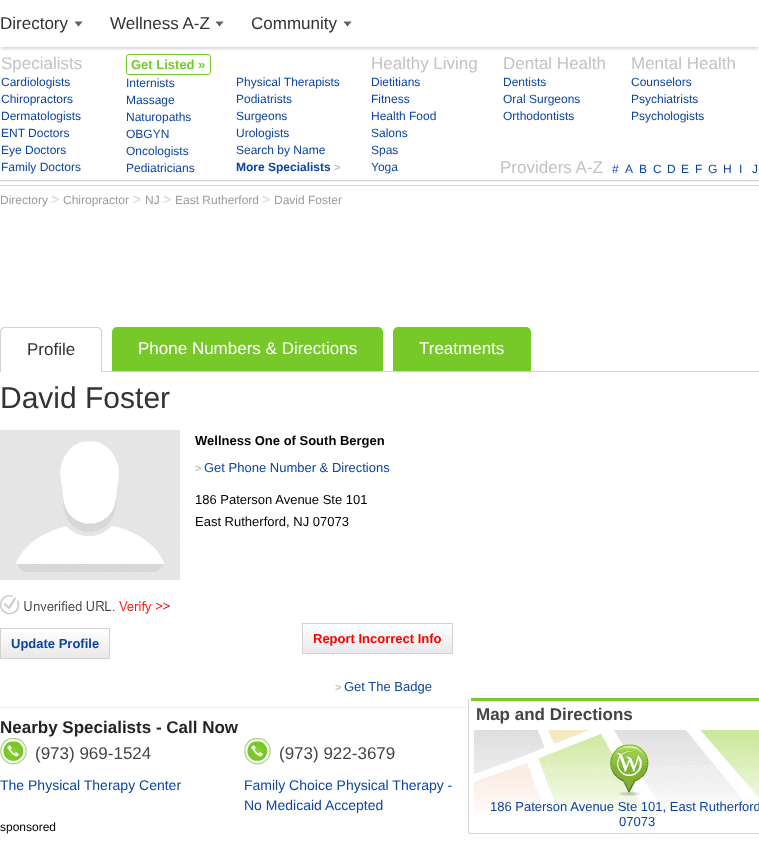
<!DOCTYPE html>
<meta charset="utf-8">
<style>body { margin: 0 } canvas { display: block }</style>
<canvas id="canvas" width="759" height="849"></canvas>
<img id="img1" src="images/1.png" hidden>
<img id="img2" src="images/2.png" hidden>
<img id="img3" src="images/3.png" hidden>
<img id="img4" src="images/4.png" hidden>
<img id="img5" src="images/5.png" hidden>
<script>
window.onload = function () {
    const canvas = document.getElementById('canvas');
    const context = canvas.getContext('2d');
    context.miterLimit = 4;
    context.fontKerning = 'normal';
    let gradient;

    context.fillStyle = 'rgb(255, 255, 255)';
    context.fillRect(0, 0, 759, 849);
    context.save();
    context.beginPath();
    context.rect(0, 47, 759, 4);
    context.clip();
    context.fillStyle = 'rgba(50, 50, 50, 0.2)';
    context.filter = 'blur(1.5px)';
    context.beginPath();
    context.rect(1, 4, 757, 45);
    context.fill();
    context.filter = 'none';
    context.restore();
    context.drawImage(document.getElementById('img1'), 75, 21, 8, 6);
    context.fillStyle = 'rgb(128, 128, 128)';
    context.filter = 'blur(2px)';
    context.beginPath();
    context.rect(-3, 61, 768, 117);
    context.fill();
    context.filter = 'none';
    context.fillStyle = 'rgb(255, 255, 255)';
    context.fillRect(0, 57, 759, 124);
    context.fillStyle = 'rgb(210, 210, 210)';
    context.beginPath();
    context.moveTo(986, 181);
    context.lineTo(-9, 181);
    context.lineTo(1, 180);
    context.lineTo(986, 180);
    context.closePath();
    context.fill();
    context.beginPath();
    context.roundRect(126.5, 54.5, 84, 20, 2.5);
    context.strokeStyle = 'rgb(119, 201, 41)';
    context.stroke();
    context.drawImage(document.getElementById('img1'), 216, 21, 8, 6);
    context.drawImage(document.getElementById('img1'), 344, 21, 8, 6);
    context.fillRect(0, 185, 759, 1);
    context.beginPath();
    context.moveTo(5, 327);
    context.lineTo(97, 327);
    context.bezierCurveTo(100, 327, 102, 329, 102, 332);
    context.lineTo(102, 372);
    context.lineTo(0, 372);
    context.lineTo(0, 332);
    context.bezierCurveTo(0, 329, 2, 327, 5, 327);
    context.closePath();
    context.moveTo(5, 328);
    context.lineTo(97, 328);
    context.bezierCurveTo(99, 328, 101, 330, 101, 332);
    context.lineTo(101, 372);
    context.lineTo(1, 372);
    context.lineTo(1, 332);
    context.bezierCurveTo(1, 330, 3, 328, 5, 328);
    context.closePath();
    context.fill('evenodd');
    context.fillStyle = 'rgb(119, 201, 41)';
    context.beginPath();
    context.roundRect(112, 327, 271, 44, [5, 5, 0, 0]);
    context.fill();
    context.beginPath();
    context.roundRect(393, 327, 138, 44, [5, 5, 0, 0]);
    context.fill();
    context.fillStyle = 'rgb(210, 210, 210)';
    context.fillRect(102, 371, 657, 1);
    context.drawImage(document.getElementById('img2'), 0, 430, 180, 150);
    context.drawImage(document.getElementById('img3'), 0, 595, 170, 20);
    gradient = context.createLinearGradient(55, 629, 55, 658);
    gradient.addColorStop(0, 'rgb(255, 255, 255)');
    gradient.addColorStop(1, 'rgb(233, 233, 233)');
    context.fillStyle = gradient;
    context.fillRect(1, 632, 108, 26);
    context.strokeStyle = 'rgb(210, 210, 210)';
    context.strokeRect(0.5, 628.5, 109, 30);
    gradient = context.createLinearGradient(378, 624, 378, 653);
    gradient.addColorStop(0, 'rgb(255, 255, 255)');
    gradient.addColorStop(1, 'rgb(233, 233, 233)');
    context.fillStyle = gradient;
    context.fillRect(303, 627, 149, 26);
    context.strokeRect(302.5, 623.5, 150, 30);
    context.fillStyle = 'rgb(238, 238, 238)';
    context.fillRect(0, 707, 468, 1);
    context.drawImage(document.getElementById('img4'), 0, 738, 27, 27);
    context.drawImage(document.getElementById('img4'), 244, 738, 27, 27);
    context.fillStyle = 'rgb(210, 210, 210)';
    context.beginPath();
    context.moveTo(471, 698);
    context.lineTo(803, 698);
    context.bezierCurveTo(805, 698, 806, 699, 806, 701);
    context.lineTo(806, 831);
    context.bezierCurveTo(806, 833, 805, 834, 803, 834);
    context.lineTo(471, 834);
    context.bezierCurveTo(469, 834, 468, 833, 468, 831);
    context.lineTo(468, 701);
    context.bezierCurveTo(468, 699, 469, 698, 471, 698);
    context.closePath();
    context.moveTo(471, 698);
    context.lineTo(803, 698);
    context.bezierCurveTo(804, 698, 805, 699, 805, 701);
    context.lineTo(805, 831);
    context.bezierCurveTo(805, 832, 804, 833, 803, 833);
    context.lineTo(471, 833);
    context.bezierCurveTo(470, 833, 469, 832, 469, 831);
    context.lineTo(469, 701);
    context.bezierCurveTo(469, 699, 470, 698, 471, 698);
    context.closePath();
    context.fill('evenodd');
    context.drawImage(document.getElementById('img5'), 469, 698, 290, 120);
    context.fillStyle = 'rgb(119, 201, 41)';
    context.fillRect(471, 698, 288, 3);
    context.fillStyle = 'rgb(255, 255, 255)';
    context.fillRect(535, 701, 224, 23);
    context.beginPath();
    context.moveTo(469, 729);
    context.lineTo(469, 830);
    context.bezierCurveTo(469, 832, 470, 833, 472, 833);
    context.lineTo(474, 833);
    context.lineTo(474, 729);
    context.closePath();
    context.fill();
    context.font = '17px Liberation Sans';
    context.fillStyle = 'rgb(51, 51, 51)';
    context.fillText('Directory', 0, 29);
    context.fillStyle = 'rgb(195, 195, 195)';
    context.fillText('Specialists', 1, 69);
    context.font = '12px Liberation Sans';
    context.fillStyle = 'rgb(13, 68, 160)';
    context.fillText('Cardiologists', 1, 86);
    context.fillText('Chiropractors', 1, 103);
    context.fillText('Dermatologists', 1, 120);
    context.fillText('ENT Doctors', 1, 137);
    context.fillText('Eye Doctors', 1, 154);
    context.fillText('Family Doctors', 1, 171);
    context.font = 'bold 13px Liberation Sans';
    context.fillStyle = 'rgb(119, 201, 41)';
    context.fillText('Get Listed', 131, 69);
    context.fillText('»', 198, 69);
    context.font = '12px Liberation Sans';
    context.fillStyle = 'rgb(13, 68, 160)';
    context.fillText('Internists', 126, 87);
    context.fillText('Massage', 126, 104);
    context.fillText('Naturopaths', 126, 121);
    context.fillText('OBGYN', 126, 138);
    context.fillText('Oncologists', 126, 155);
    context.fillText('Pediatricians', 126, 172);
    context.fillText('Physical Therapists', 236, 86);
    context.fillText('Podiatrists', 236, 103);
    context.fillText('Surgeons', 236, 120);
    context.fillText('Urologists', 236, 137);
    context.fillText('Search by Name', 236, 154);
    context.font = 'bold 12px Liberation Sans';
    context.fillText('More Specialists', 236, 171);
    context.font = 'bold 11px Liberation Sans';
    context.fillStyle = 'rgb(195, 195, 195)';
    context.fillText('>', 334, 171);
    context.font = '17px Liberation Sans';
    context.fillText('Healthy Living', 371, 69);
    context.font = '12px Liberation Sans';
    context.fillStyle = 'rgb(13, 68, 160)';
    context.fillText('Dietitians', 371, 86);
    context.fillText('Fitness', 371, 103);
    context.fillText('Health Food', 371, 120);
    context.fillText('Salons', 371, 137);
    context.fillText('Spas', 371, 154);
    context.fillText('Yoga', 371, 171);
    context.font = '17px Liberation Sans';
    context.fillStyle = 'rgb(195, 195, 195)';
    context.fillText('Dental Health', 503, 69);
    context.font = '12px Liberation Sans';
    context.fillStyle = 'rgb(13, 68, 160)';
    context.fillText('Dentists', 503, 86);
    context.fillText('Oral Surgeons', 503, 103);
    context.fillText('Orthodontists', 503, 120);
    context.font = '17px Liberation Sans';
    context.fillStyle = 'rgb(195, 195, 195)';
    context.fillText('Mental Health', 631, 69);
    context.font = '12px Liberation Sans';
    context.fillStyle = 'rgb(13, 68, 160)';
    context.fillText('Counselors', 631, 86);
    context.fillText('Psychiatrists', 631, 103);
    context.fillText('Psychologists', 631, 120);
    context.font = '17px Liberation Sans';
    context.fillStyle = 'rgb(195, 195, 195)';
    context.fillText('Providers A-Z', 500, 173);
    context.font = '12px Liberation Sans';
    context.fillStyle = 'rgb(13, 68, 160)';
    context.fillText('#', 612, 173);
    context.fillText('A', 625, 173);
    context.fillText('B', 639, 173);
    context.fillText('C', 653, 173);
    context.fillText('D', 667, 173);
    context.fillText('E', 681, 173);
    context.fillText('F', 695, 173);
    context.fillText('G', 708, 173);
    context.fillText('H', 723, 173);
    context.fillText('I', 739, 173);
    context.fillText('J', 752, 173);
    context.font = '17px Liberation Sans';
    context.fillStyle = 'rgb(51, 51, 51)';
    context.fillText('Wellness A-Z', 110, 29);
    context.fillText('Community', 251, 29);
    context.font = '12px Liberation Sans';
    context.fillStyle = 'rgb(155, 155, 155)';
    context.fillText('Directory', 0, 204);
    context.font = '14px Liberation Sans';
    context.fillStyle = 'rgb(210, 210, 210)';
    context.fillText('>', 51, 204);
    context.font = '12px Liberation Sans';
    context.fillStyle = 'rgb(155, 155, 155)';
    context.fillText('Chiropractor', 63, 204);
    context.font = '14px Liberation Sans';
    context.fillStyle = 'rgb(210, 210, 210)';
    context.fillText('>', 133, 204);
    context.font = '12px Liberation Sans';
    context.fillStyle = 'rgb(155, 155, 155)';
    context.fillText('NJ', 145, 204);
    context.font = '14px Liberation Sans';
    context.fillStyle = 'rgb(210, 210, 210)';
    context.fillText('>', 163, 204);
    context.font = '12px Liberation Sans';
    context.fillStyle = 'rgb(155, 155, 155)';
    context.fillText('East Rutherford', 175, 204);
    context.font = '14px Liberation Sans';
    context.fillStyle = 'rgb(210, 210, 210)';
    context.fillText('>', 262, 204);
    context.font = '12px Liberation Sans';
    context.fillStyle = 'rgb(155, 155, 155)';
    context.fillText('David Foster', 274, 204);
    context.font = '17px Liberation Sans';
    context.fillStyle = 'rgb(51, 51, 51)';
    context.fillText('Profile', 27, 355);
    context.fillStyle = 'rgb(255, 255, 255)';
    context.fillText('Phone Numbers & Directions', 138, 354);
    context.fillText('Treatments', 419, 354);
    context.font = '30px Liberation Sans';
    context.fillStyle = 'rgb(51, 51, 51)';
    context.fillText('David Foster', 0, 408);
    context.font = 'bold 13px Liberation Sans';
    context.fillStyle = 'rgb(0, 0, 0)';
    context.fillText('Wellness One of South Bergen', 195, 445);
    context.font = 'bold 11px Liberation Sans';
    context.fillStyle = 'rgb(195, 195, 195)';
    context.fillText('>', 195, 472);
    context.font = '13px Liberation Sans';
    context.fillStyle = 'rgb(13, 68, 160)';
    context.fillText('Get Phone Number & Directions', 204, 472);
    context.fillStyle = 'rgb(0, 0, 0)';
    context.fillText('186 Paterson Avenue Ste 101', 195, 504);
    context.fillText('East Rutherford, NJ 07073', 195, 526);
    context.font = 'bold 13px Liberation Sans';
    context.fillStyle = 'rgb(13, 68, 160)';
    context.fillText('Update Profile', 11, 648);
    context.fillStyle = 'rgb(255, 0, 0)';
    context.fillText('Report Incorrect Info', 313, 643);
    context.font = 'bold 11px Liberation Sans';
    context.fillStyle = 'rgb(195, 195, 195)';
    context.fillText('>', 335, 691);
    context.font = '13px Liberation Sans';
    context.fillStyle = 'rgb(13, 68, 160)';
    context.fillText('Get The Badge', 344, 691);
    context.font = 'bold 17px Liberation Sans';
    context.fillStyle = 'rgb(36, 36, 36)';
    context.fillText('Nearby Specialists - Call Now', 0, 733);
    context.font = '17px Liberation Sans';
    context.fillStyle = 'rgb(68, 68, 68)';
    context.fillText('(973) 969-1524', 35, 759);
    context.font = '14px Liberation Sans';
    context.fillStyle = 'rgb(13, 68, 160)';
    context.fillText('The Physical Therapy Center', 0, 790);
    context.font = '17px Liberation Sans';
    context.fillStyle = 'rgb(68, 68, 68)';
    context.fillText('(973) 922-3679', 279, 759);
    context.font = '14px Liberation Sans';
    context.fillStyle = 'rgb(13, 68, 160)';
    context.fillText('Family Choice Physical Therapy -', 244, 790);
    context.fillText('No Medicaid Accepted', 244, 810);
    context.font = '12px Liberation Sans';
    context.fillStyle = 'rgb(0, 0, 0)';
    context.fillText('sponsored', 0, 831);
    context.font = 'bold 17px Liberation Sans';
    context.fillStyle = 'rgb(68, 68, 68)';
    context.fillText('Map and Directions', 476, 720);
    context.font = '13px Liberation Sans';
    context.fillStyle = 'rgb(13, 68, 160)';
    context.fillText('186 Paterson Avenue Ste 101, East Rutherford', 490, 811);
    context.fillText('07073', 619, 826);
};
</script>
